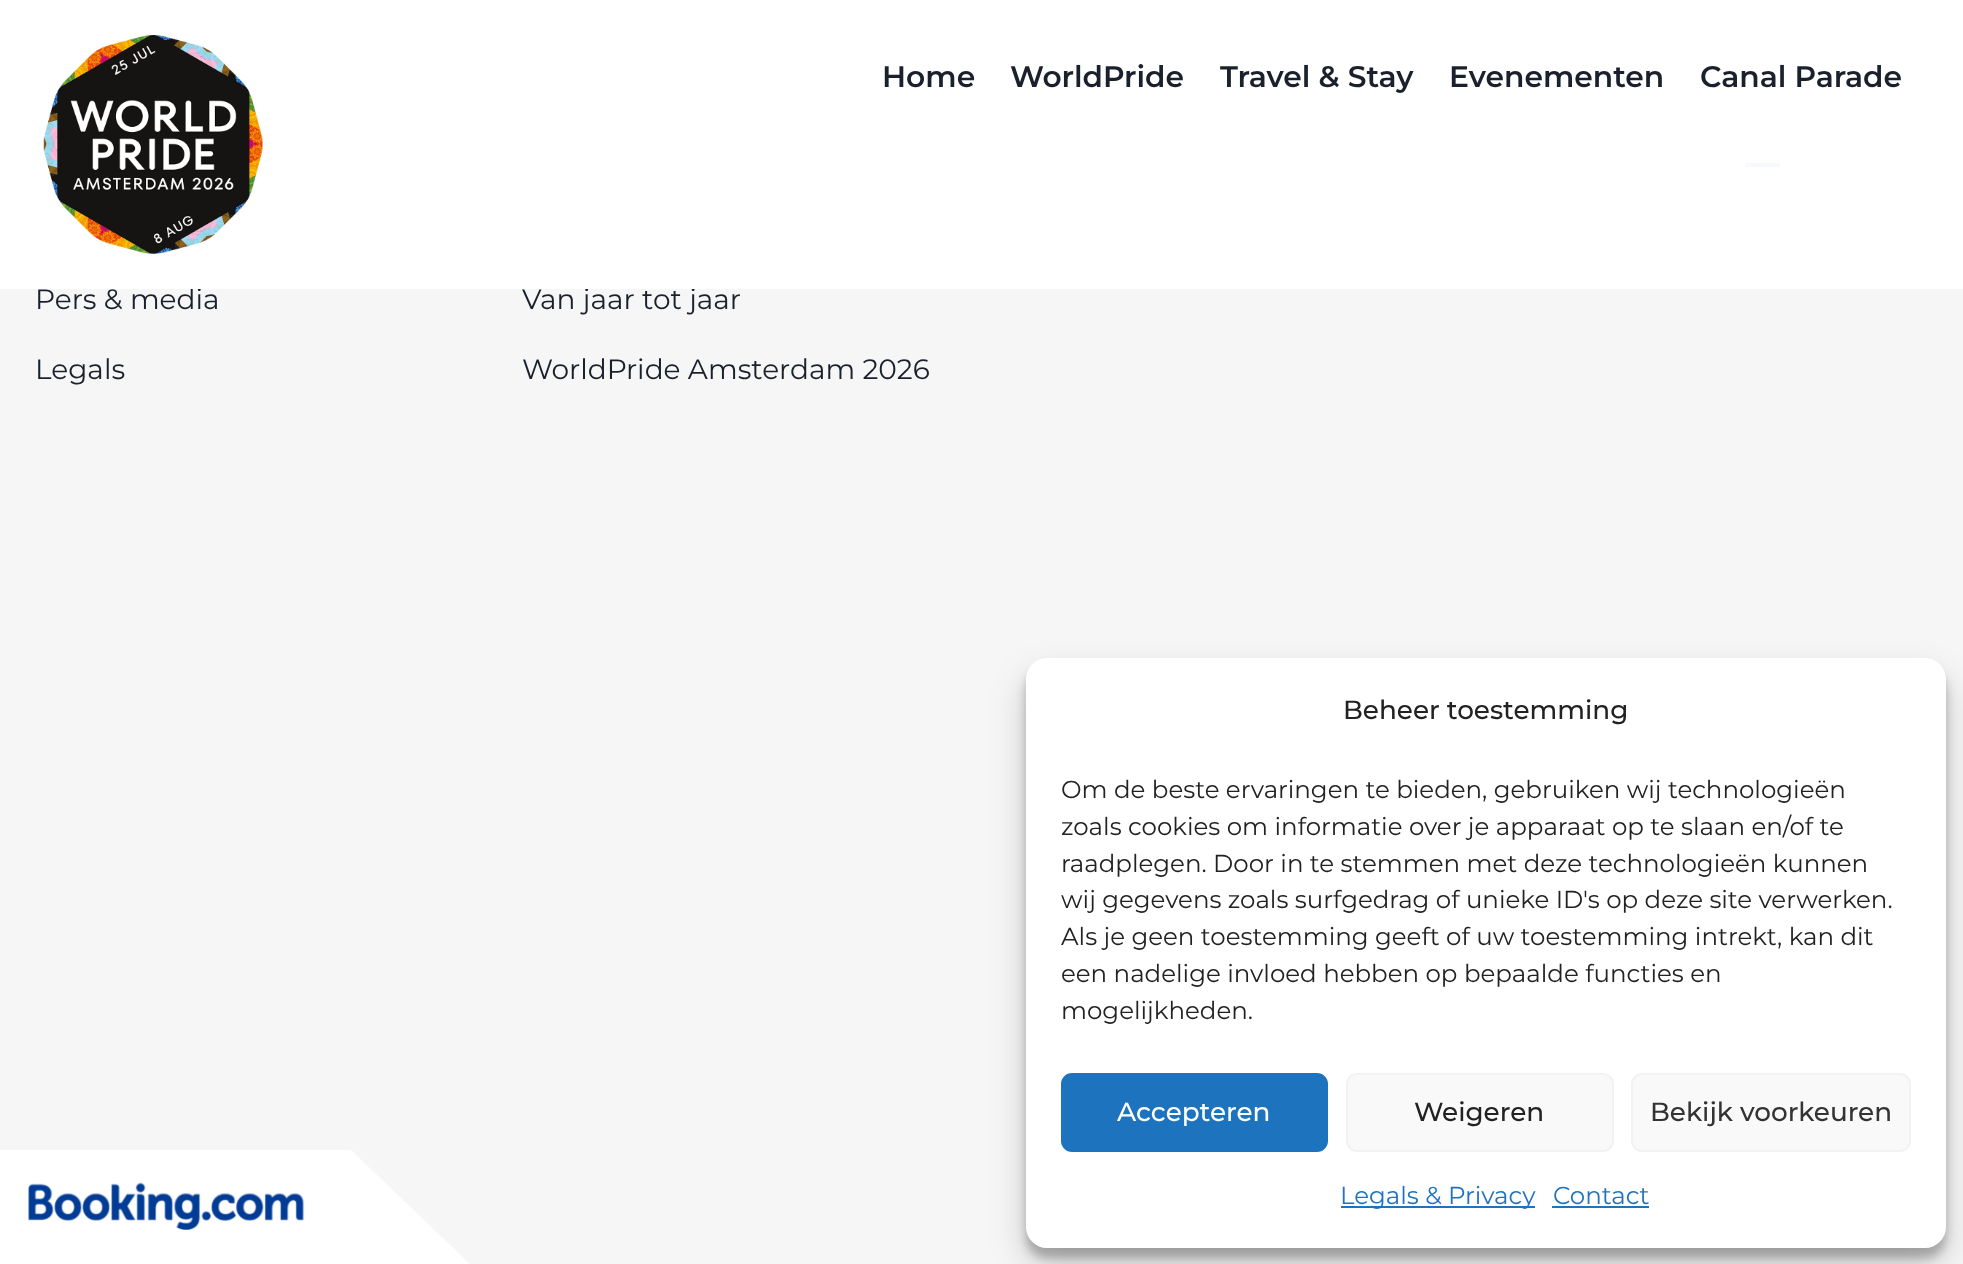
<!DOCTYPE html>
<meta charset="utf-8">
<style>body { margin: 0 } canvas { display: block }</style>
<canvas id="canvas" width="1963" height="1264"></canvas>
<img id="img1" src="images/2.png" hidden>
<img id="img2" src="images/1.png" hidden>
<script>
window.onload = function () {
    const canvas = document.getElementById('canvas');
    const context = canvas.getContext('2d');
    context.miterLimit = 4;
    context.fontKerning = 'normal';

    context.fillStyle = 'rgb(246, 246, 246)';
    context.fillRect(0, 0, 1963, 1264);
    context.fillStyle = 'rgb(255, 255, 255)';
    context.beginPath();
    context.moveTo(194, 1150);
    context.lineTo(351, 1150);
    context.lineTo(471, 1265);
    context.lineTo(314, 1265);
    context.closePath();
    context.fill();
    context.fillRect(0, 1150, 313, 114);
    context.drawImage(document.getElementById('img1'), 28, 1182, 277, 48);
    context.fillStyle = 'rgba(0, 0, 0, 0.23)';
    context.filter = 'blur(5px)';
    context.beginPath();
    context.roundRect(1026, 669, 920, 589, 21);
    context.fill();
    context.filter = 'none';
    context.fillStyle = 'rgba(0, 0, 0, 0.19)';
    context.filter = 'blur(17.5px)';
    context.beginPath();
    context.roundRect(1026, 676, 920, 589, 21);
    context.fill();
    context.filter = 'none';
    context.fillStyle = 'rgb(255, 255, 255)';
    context.beginPath();
    context.roundRect(1026, 658, 920, 590, 21);
    context.fill();
    context.fillStyle = 'rgb(30, 115, 190)';
    context.beginPath();
    context.roundRect(1062, 1074, 265, 77, 10);
    context.fill();
    context.strokeStyle = 'rgb(30, 115, 190)';
    context.lineWidth = 2;
    context.stroke();
    context.fillStyle = 'rgb(249, 249, 249)';
    context.beginPath();
    context.roundRect(1347, 1074, 266, 77, 10);
    context.fill();
    context.strokeStyle = 'rgb(242, 242, 242)';
    context.stroke();
    context.beginPath();
    context.roundRect(1632, 1074, 278, 77, 10);
    context.fill();
    context.stroke();
    context.fillStyle = 'rgb(30, 115, 190)';
    context.fillRect(1341, 1206, 194, 2);
    context.fillRect(1552, 1206, 97, 2);
    context.font = '28px Montserrat';
    context.fillStyle = 'rgb(26, 32, 44)';
    context.fillText('Pers & media', 35, 309);
    context.fillText('Legals', 35, 379);
    context.fillText('Van jaar tot jaar', 522, 309);
    context.fillStyle = 'rgb(255, 255, 255)';
    context.fillRect(0, 0, 1963, 289);
    context.font = '600 29.75px Montserrat';
    context.fillStyle = 'rgb(26, 32, 44)';
    context.fillText('Canal Parade', 1700, 87);
    context.fillText('Evenementen', 1449, 87);
    context.fillText('Travel & Stay', 1220, 87);
    context.fillText('WorldPride', 1010, 87);
    context.fillText('Home', 882, 87);
    context.fillStyle = 'rgb(247, 250, 252)';
    context.fillRect(1745, 163, 35, 4);
    context.drawImage(document.getElementById('img2'), 43, 35, 220, 219);
    context.font = '28px Montserrat';
    context.fillStyle = 'rgb(26, 32, 44)';
    context.fillText('WorldPride Amsterdam 2026', 522, 379);
    context.font = '500 26.25px Montserrat';
    context.fillStyle = 'rgb(34, 34, 34)';
    context.fillText('Beheer toestemming', 1343, 719);
    context.font = '24.5px Montserrat';
    context.fillText('Om de beste ervaringen te bieden, gebruiken wij technologieën', 1061, 798);
    context.fillText('zoals cookies om informatie over je apparaat op te slaan en/of te', 1061, 835);
    context.fillText('raadplegen. Door in te stemmen met deze technologieën kunnen', 1061, 872);
    context.fillText('wij gegevens zoals surfgedrag of unieke ID\'s op deze site verwerken.', 1061, 908);
    context.fillText('Als je geen toestemming geeft of uw toestemming intrekt, kan dit', 1061, 945);
    context.fillText('een nadelige invloed hebben op bepaalde functies en', 1061, 982);
    context.fillText('mogelijkheden.', 1061, 1019);
    context.font = '500 26.25px Montserrat';
    context.fillStyle = 'rgb(255, 255, 255)';
    context.fillText('Accepteren', 1117, 1121);
    context.fillStyle = 'rgb(34, 34, 34)';
    context.fillText('Weigeren', 1414, 1121);
    context.fillStyle = 'rgb(51, 51, 51)';
    context.fillText('Bekijk voorkeuren', 1650, 1121);
    context.font = '24.5px Montserrat';
    context.fillStyle = 'rgb(30, 115, 190)';
    context.fillText('Legals & Privacy', 1340, 1204);
    context.fillText('Contact', 1553, 1204);
};
</script>
